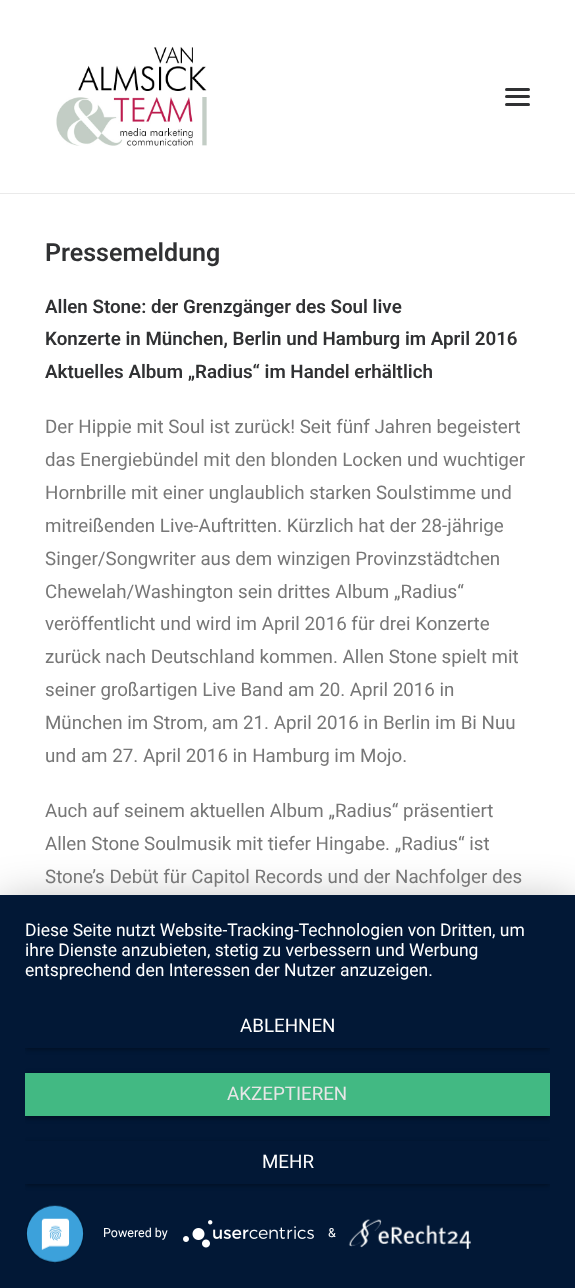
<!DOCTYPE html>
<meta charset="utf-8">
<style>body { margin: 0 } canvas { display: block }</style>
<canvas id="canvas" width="575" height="1288"></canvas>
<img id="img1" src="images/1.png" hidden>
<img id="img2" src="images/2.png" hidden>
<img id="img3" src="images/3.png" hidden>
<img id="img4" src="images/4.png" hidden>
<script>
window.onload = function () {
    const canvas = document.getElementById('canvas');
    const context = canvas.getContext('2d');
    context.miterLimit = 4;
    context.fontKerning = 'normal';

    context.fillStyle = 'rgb(255, 255, 255)';
    context.fillRect(0, 0, 575, 1288);
    context.fillStyle = 'rgb(234, 234, 234)';
    context.fillRect(0, 193, 575, 1);
    context.drawImage(document.getElementById('img1'), 56, 46, 151, 100);
    context.fillStyle = 'rgb(48, 49, 51)';
    context.beginPath();
    context.roundRect(505, 95, 25, 3, 1.5);
    context.fill();
    context.beginPath();
    context.roundRect(505, 88, 25, 3, 1.5);
    context.fill();
    context.beginPath();
    context.roundRect(505, 103, 25, 3, 1.5);
    context.fill();
    context.fillStyle = 'rgba(0, 0, 0, 0.3)';
    context.filter = 'blur(22.5px)';
    context.beginPath();
    context.rect(0, 903, 575, 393);
    context.fill();
    context.filter = 'none';
    context.fillStyle = 'rgb(2, 24, 54)';
    context.fillRect(0, 895, 575, 393);
    context.save();
    context.beginPath();
    context.rect(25, 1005, 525, 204);
    context.clip();
    context.fillStyle = 'rgba(0, 0, 0, 0.4)';
    context.filter = 'blur(2.5px)';
    context.beginPath();
    context.rect(25, 1006, 525, 43);
    context.fill();
    context.filter = 'none';
    context.restore();
    context.fillRect(25, 1005, 525, 43);
    context.save();
    context.beginPath();
    context.rect(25, 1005, 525, 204);
    context.clip();
    context.fillStyle = 'rgba(0, 0, 0, 0.4)';
    context.filter = 'blur(2.5px)';
    context.beginPath();
    context.rect(25, 1074, 525, 44);
    context.fill();
    context.filter = 'none';
    context.restore();
    context.fillStyle = 'rgb(66, 185, 131)';
    context.fillRect(25, 1073, 525, 43);
    context.save();
    context.beginPath();
    context.rect(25, 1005, 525, 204);
    context.clip();
    context.fillStyle = 'rgba(0, 0, 0, 0.4)';
    context.filter = 'blur(2.5px)';
    context.beginPath();
    context.rect(25, 1143, 525, 42);
    context.fill();
    context.filter = 'none';
    context.restore();
    context.fillStyle = 'rgb(2, 24, 54)';
    context.fillRect(25, 1141, 525, 43);
    context.drawImage(document.getElementById('img2'), 183, 1220, 131, 28);
    context.drawImage(document.getElementById('img3'), 348, 1219, 123, 30);
    context.drawImage(document.getElementById('img4'), 26, 1205, 58, 58);
    context.font = '600 25px Roboto';
    context.fillStyle = 'rgb(48, 49, 51)';
    context.fillText('Pressemeldung', 45, 261);
    context.font = '600 18.75px Roboto';
    context.fillText('Allen Stone: der Grenzgänger des Soul live', 45, 313);
    context.fillText('Konzerte in München, Berlin und Hamburg im April 2016', 45, 345);
    context.fillText('Aktuelles Album „Radius“ im Handel erhältlich', 45, 378);
    context.font = '18.75px Roboto';
    context.fillStyle = 'rgb(119, 119, 119)';
    context.fillText('Der Hippie mit Soul ist zurück! Seit fünf Jahren begeistert', 45, 433);
    context.fillText('das Energiebündel mit den blonden Locken und wuchtiger', 45, 466);
    context.fillText('Hornbrille mit einer unglaublich starken Soulstimme und', 45, 499);
    context.fillText('mitreißenden Live-Auftritten. Kürzlich hat der 28-jährige', 45, 532);
    context.fillText('Singer/Songwriter aus dem winzigen Provinzstädtchen', 45, 565);
    context.fillText('Chewelah/Washington sein drittes Album „Radius“', 45, 598);
    context.fillText('veröffentlicht und wird im April 2016 für drei Konzerte', 45, 630);
    context.fillText('zurück nach Deutschland kommen. Allen Stone spielt mit', 45, 663);
    context.fillText('seiner großartigen Live Band am 20. April 2016 in', 45, 696);
    context.fillText('München im Strom, am 21. April 2016 in Berlin im Bi Nuu', 45, 729);
    context.fillText('und am 27. April 2016 in Hamburg im Mojo.', 45, 762);
    context.fillText('Auch auf seinem aktuellen Album „Radius“ präsentiert', 45, 817);
    context.fillText('Allen Stone Soulmusik mit tiefer Hingabe. „Radius“ ist', 45, 850);
    context.fillText('Stone’s Debüt für Capitol Records und der Nachfolger des', 45, 883);
    context.font = '17.5px Roboto';
    context.fillStyle = 'rgb(255, 255, 255)';
    context.fillText('Diese Seite nutzt Website-Tracking-Technologien von Dritten, um', 25, 936);
    context.fillText('ihre Dienste anzubieten, stetig zu verbessern und Werbung', 25, 956);
    context.fillText('entsprechend den Interessen der Nutzer anzuzeigen.', 25, 976);
    context.font = '18.75px Roboto';
    context.fillText('ABLEHNEN', 240, 1032);
    context.fillStyle = 'rgb(230, 230, 230)';
    context.fillText('AKZEPTIEREN', 227, 1100);
    context.fillStyle = 'rgb(255, 255, 255)';
    context.fillText('MEHR', 262, 1168);
    context.font = '12.5px Roboto';
    context.fillText('Powered by', 103, 1237);
    context.fillText('&', 328, 1237);
};
</script>
